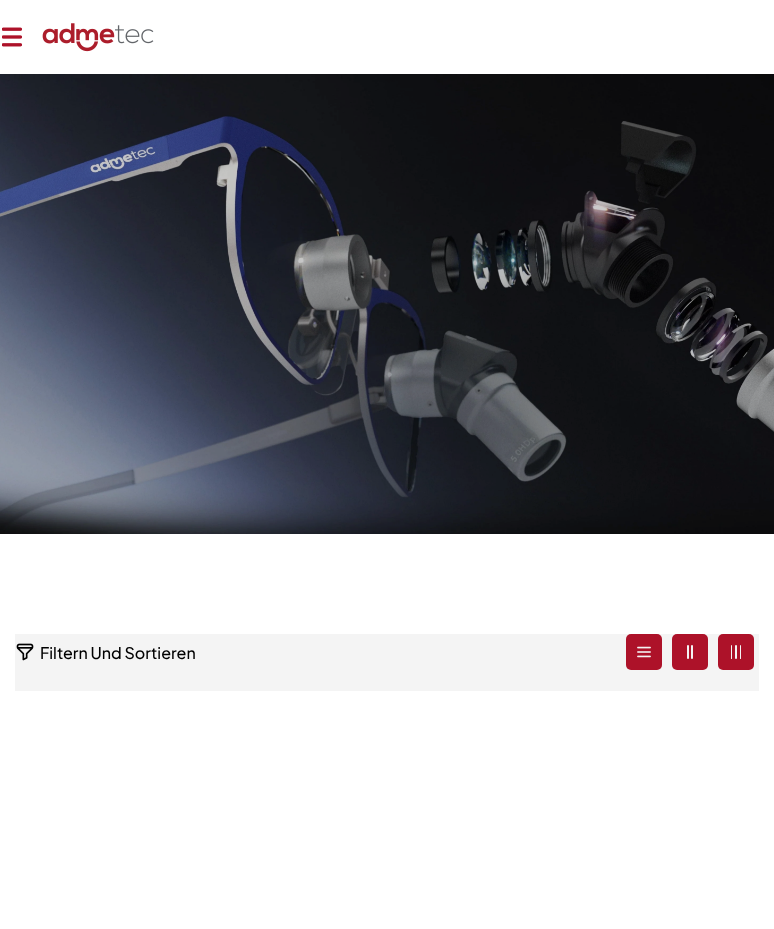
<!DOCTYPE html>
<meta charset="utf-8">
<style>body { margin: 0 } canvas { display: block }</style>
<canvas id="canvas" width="774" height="929"></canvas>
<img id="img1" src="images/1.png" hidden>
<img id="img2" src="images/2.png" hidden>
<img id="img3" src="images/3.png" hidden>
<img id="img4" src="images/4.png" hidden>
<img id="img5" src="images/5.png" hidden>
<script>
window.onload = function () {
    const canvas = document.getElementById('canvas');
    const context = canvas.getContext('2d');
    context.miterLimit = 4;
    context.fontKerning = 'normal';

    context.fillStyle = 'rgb(255, 255, 255)';
    context.fillRect(0, 0, 774, 929);
    context.drawImage(document.getElementById('img1'), 2, 27, 20, 20);
    context.drawImage(document.getElementById('img2'), 42, 23, 112, 29);
    context.drawImage(document.getElementById('img3'), 0, 74, 774, 460);
    context.fillStyle = 'rgb(244, 244, 244)';
    context.fillRect(15, 634, 744, 57);
    context.drawImage(document.getElementById('img4'), 16, 643, 18, 18);
    context.fillStyle = 'rgb(173, 18, 41)';
    context.beginPath();
    context.roundRect(626, 634, 36, 36, 5);
    context.fill();
    context.drawImage(document.getElementById('img5'), 637, 646, 14, 12);
    context.beginPath();
    context.roundRect(672, 634, 36, 36, 5);
    context.fill();
    context.fillStyle = 'rgb(244, 244, 244)';
    context.beginPath();
    context.roundRect(687, 645, 2, 14, 1);
    context.fill();
    context.beginPath();
    context.roundRect(691, 645, 2, 14, 1);
    context.fill();
    context.fillStyle = 'rgb(173, 18, 41)';
    context.beginPath();
    context.roundRect(718, 634, 36, 36, 5);
    context.fill();
    context.fillStyle = 'rgb(244, 244, 244)';
    context.beginPath();
    context.roundRect(731, 645, 1, 14, 0.5);
    context.fill();
    context.beginPath();
    context.roundRect(735, 645, 2, 14, 1);
    context.fill();
    context.beginPath();
    context.roundRect(740, 645, 1, 14, 0.5);
    context.fill();
    context.font = '500 16px Plus Jakarta Sans';
    context.fillStyle = 'rgb(0, 0, 0)';
    context.fillText('Filtern Und Sortieren', 40, 659);
};
</script>
